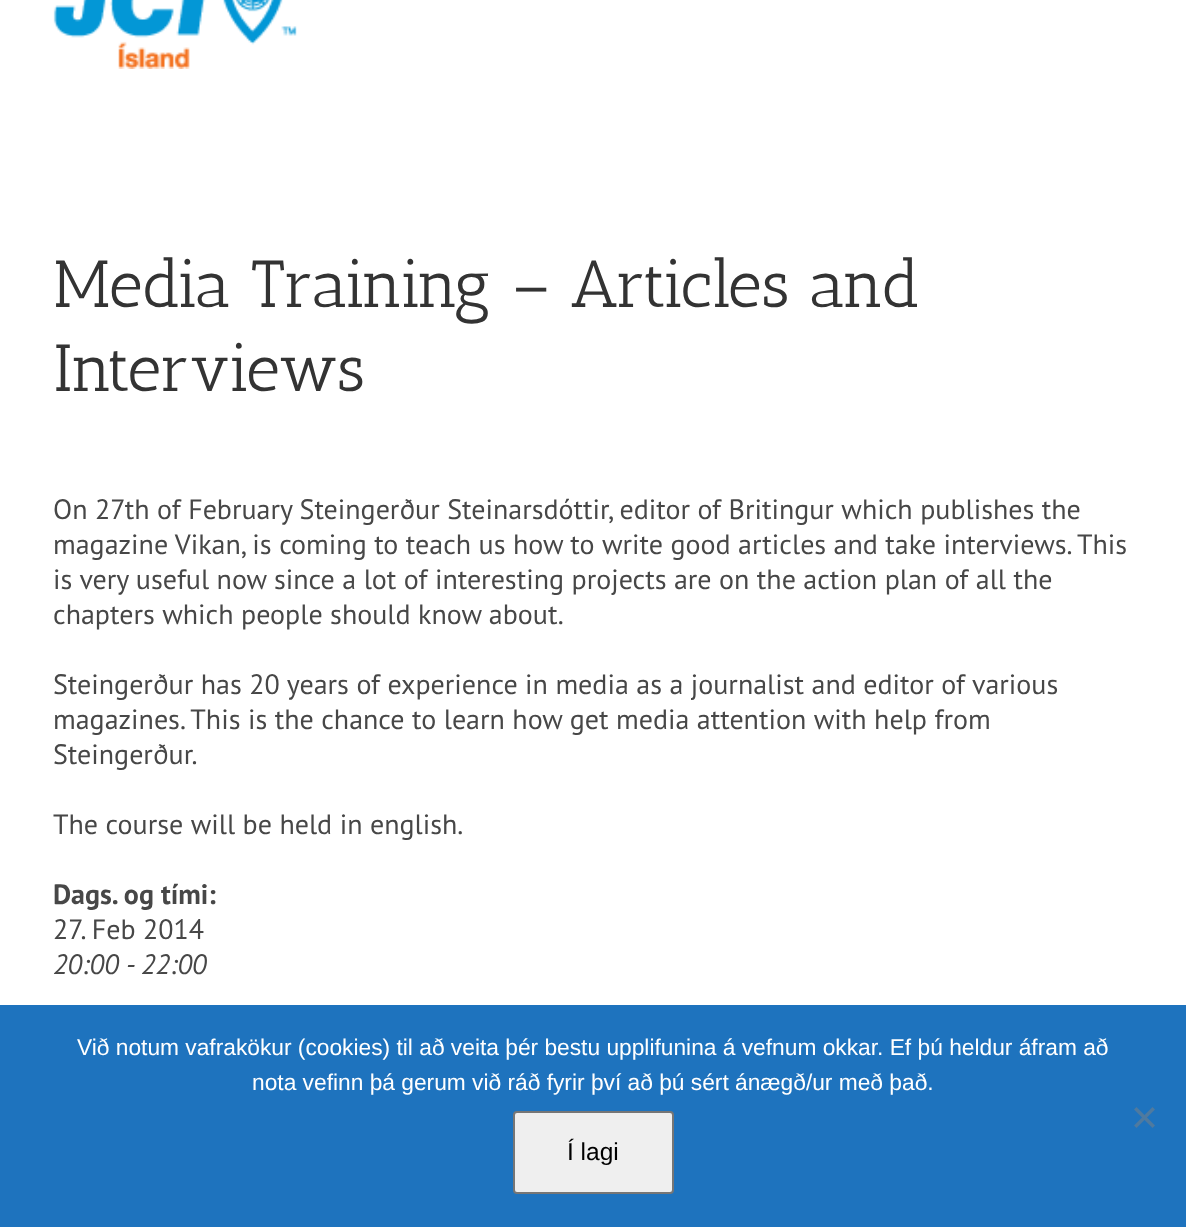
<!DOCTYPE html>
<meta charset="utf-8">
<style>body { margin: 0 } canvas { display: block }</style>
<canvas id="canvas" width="1186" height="1227"></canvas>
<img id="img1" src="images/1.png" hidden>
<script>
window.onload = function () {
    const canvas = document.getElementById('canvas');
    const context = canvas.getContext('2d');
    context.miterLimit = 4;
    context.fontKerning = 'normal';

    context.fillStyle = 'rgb(255, 255, 255)';
    context.fillRect(0, 0, 1186, 1227);
    context.drawImage(document.getElementById('img1'), 53, 0, 244, 69);
    context.fillStyle = 'rgb(30, 115, 190)';
    context.fillRect(0, 1005, 1186, 222);
    context.fillStyle = 'rgb(79, 122, 159)';
    context.beginPath();
    context.moveTo(1152.5, 1107);
    context.lineTo(1155, 1109.5);
    context.lineTo(1136.5, 1128);
    context.lineTo(1134, 1125.5);
    context.closePath();
    context.fill();
    context.beginPath();
    context.moveTo(1134, 1109.5);
    context.lineTo(1136.5, 1107);
    context.lineTo(1155, 1125.5);
    context.lineTo(1152.5, 1128);
    context.closePath();
    context.fill();
    context.fillStyle = 'rgb(239, 239, 239)';
    context.beginPath();
    context.roundRect(514, 1112, 159, 81, 3);
    context.fill();
    context.strokeStyle = 'rgb(118, 118, 118)';
    context.lineWidth = 2;
    context.stroke();
    context.font = '66.5px Antic Slab';
    context.fillStyle = 'rgb(51, 51, 51)';
    context.fillText('Media Training – Articles and', 53, 307);
    context.fillText('Interviews', 53, 391);
    context.font = '28px PT Sans';
    context.fillStyle = 'rgb(71, 71, 71)';
    context.fillText('On 27th of February Steingerður Steinarsdóttir, editor of Britingur which publishes the', 53, 519);
    context.fillText('magazine Vikan, is coming to teach us how to write good articles and take interviews. This', 53, 554);
    context.fillText('is very useful now since a lot of interesting projects are on the action plan of all the', 53, 589);
    context.fillText('chapters which people should know about.', 53, 624);
    context.fillText('Steingerður has 20 years of experience in media as a journalist and editor of various', 53, 694);
    context.fillText('magazines. This is the chance to learn how get media attention with help from', 53, 729);
    context.fillText('Steingerður.', 53, 764);
    context.fillText('The course will be held in english.', 53, 834);
    context.font = 'bold 28px PT Sans';
    context.fillText('Dags. og tími:', 53, 904);
    context.font = '28px PT Sans';
    context.fillText('27. Feb 2014', 53, 939);
    context.font = 'italic 28px PT Sans';
    context.fillText('20:00 - 22:00', 53, 974);
    context.font = '22.75px Liberation Sans';
    context.fillStyle = 'rgb(255, 255, 255)';
    context.fillText('Við notum vafrakökur (cookies) til að veita þér bestu upplifunina á vefnum okkar. Ef þú heldur áfram að', 77, 1055);
    context.fillText('nota vefinn þá gerum við ráð fyrir því að þú sért ánægð/ur með það.', 252, 1090);
    context.font = '24.5px Liberation Sans';
    context.fillStyle = 'rgb(0, 0, 0)';
    context.fillText('Í lagi', 567, 1160);
};
</script>
